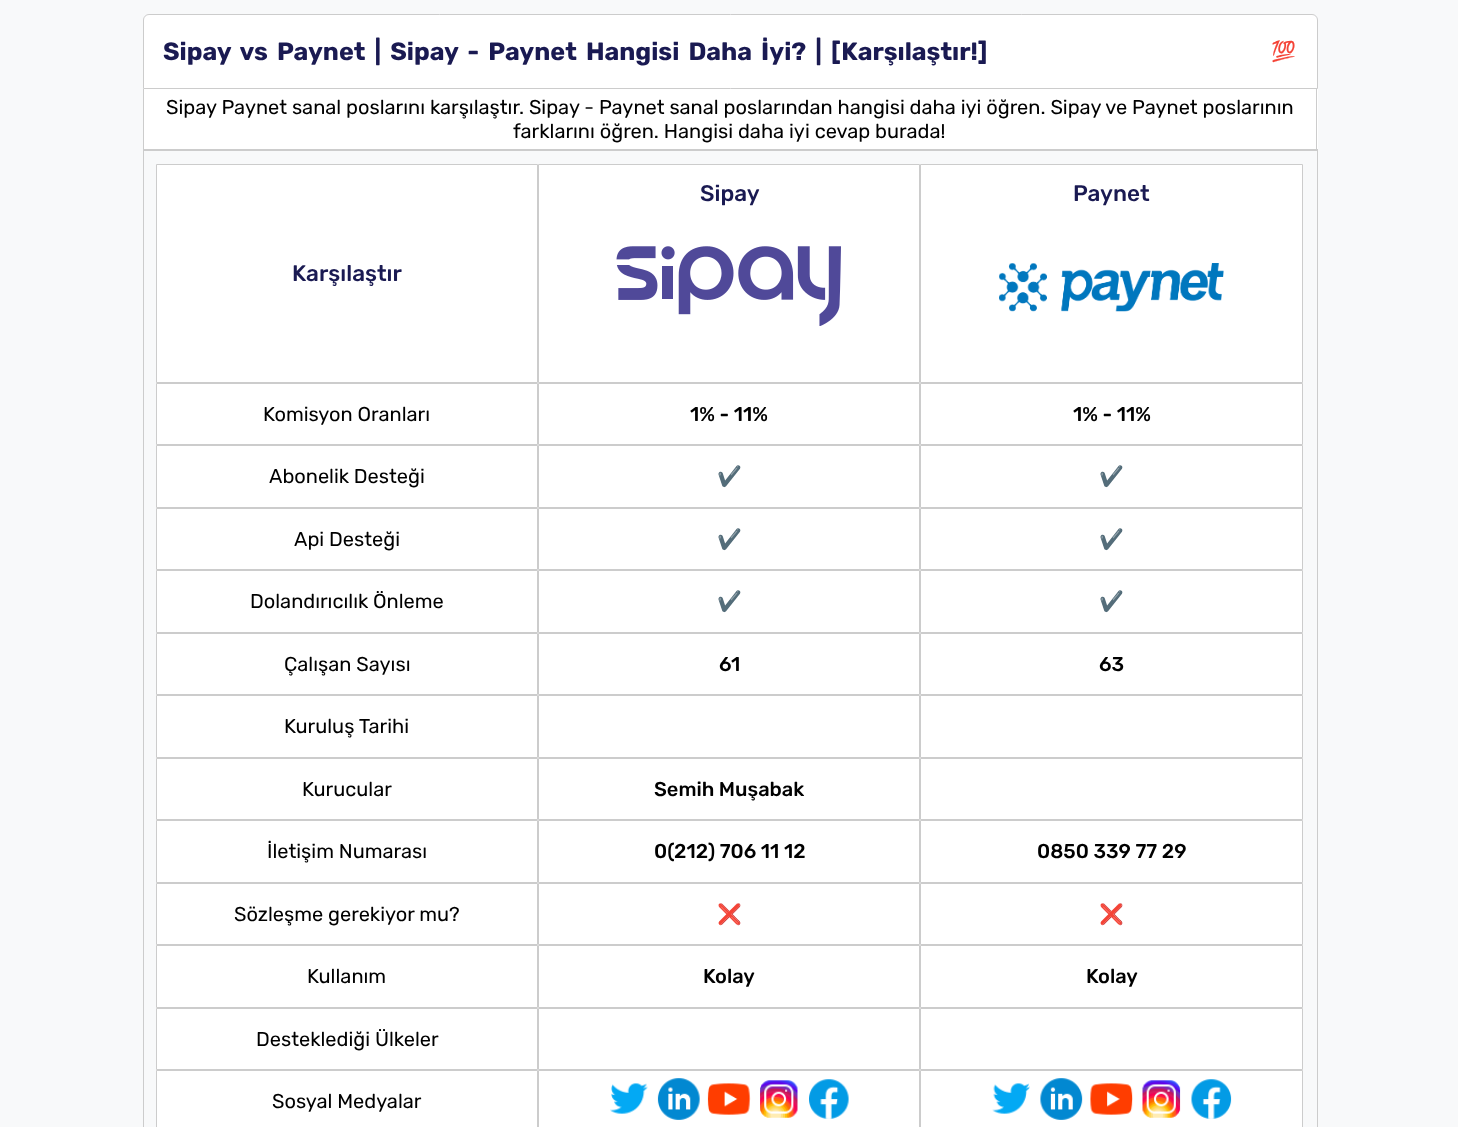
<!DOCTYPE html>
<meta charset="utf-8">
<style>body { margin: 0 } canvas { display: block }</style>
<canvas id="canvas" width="1458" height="1127"></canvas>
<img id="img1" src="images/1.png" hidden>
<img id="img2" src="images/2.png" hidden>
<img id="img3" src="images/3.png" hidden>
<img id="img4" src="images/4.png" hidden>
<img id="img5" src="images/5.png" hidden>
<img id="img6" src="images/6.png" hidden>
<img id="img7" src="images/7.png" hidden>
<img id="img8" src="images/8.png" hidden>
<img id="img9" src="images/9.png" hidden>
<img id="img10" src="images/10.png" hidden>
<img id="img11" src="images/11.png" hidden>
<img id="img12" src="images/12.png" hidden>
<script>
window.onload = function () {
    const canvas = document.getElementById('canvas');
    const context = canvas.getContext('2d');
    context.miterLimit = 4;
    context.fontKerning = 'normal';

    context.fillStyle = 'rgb(248, 249, 250)';
    context.fillRect(0, 0, 1458, 1127);
    context.fillStyle = 'rgb(255, 255, 255)';
    context.beginPath();
    context.roundRect(143.5, 14.5, 1174, 74, [5.5, 5.5, 0, 0]);
    context.fill();
    context.strokeStyle = 'rgb(204, 204, 204)';
    context.stroke();
    context.fillRect(144, 89, 1174, 60);
    context.fillStyle = 'rgb(204, 204, 204)';
    context.fillRect(1316, 89, 1, 61);
    context.fillRect(143, 149, 1175, 1);
    context.fillRect(143, 89, 1, 61);
    context.strokeRect(143.5, 150.5, 1174, 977);
    context.fillStyle = 'rgb(255, 255, 255)';
    context.beginPath();
    context.rect(156.5, 164.5, 381, 218);
    context.fill();
    context.stroke();
    context.beginPath();
    context.rect(156.5, 383.5, 381, 61);
    context.fill();
    context.stroke();
    context.beginPath();
    context.rect(156.5, 445.5, 381, 62);
    context.fill();
    context.stroke();
    context.beginPath();
    context.rect(156.5, 508.5, 381, 61);
    context.fill();
    context.stroke();
    context.beginPath();
    context.rect(156.5, 570.5, 381, 62);
    context.fill();
    context.stroke();
    context.beginPath();
    context.rect(156.5, 633.5, 381, 61);
    context.fill();
    context.stroke();
    context.beginPath();
    context.rect(156.5, 695.5, 381, 62);
    context.fill();
    context.stroke();
    context.beginPath();
    context.rect(156.5, 758.5, 381, 61);
    context.fill();
    context.stroke();
    context.beginPath();
    context.rect(156.5, 820.5, 381, 62);
    context.fill();
    context.stroke();
    context.beginPath();
    context.rect(156.5, 883.5, 381, 61);
    context.fill();
    context.stroke();
    context.beginPath();
    context.rect(156.5, 945.5, 381, 62);
    context.fill();
    context.stroke();
    context.beginPath();
    context.rect(156.5, 1008.5, 381, 61);
    context.fill();
    context.stroke();
    context.beginPath();
    context.rect(156.5, 1070.5, 381, 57);
    context.fill();
    context.stroke();
    context.beginPath();
    context.rect(538.5, 164.5, 381, 218);
    context.fill();
    context.stroke();
    context.drawImage(document.getElementById('img1'), 616, 246, 225, 80);
    context.beginPath();
    context.rect(538.5, 383.5, 381, 61);
    context.fill();
    context.stroke();
    context.beginPath();
    context.rect(538.5, 445.5, 381, 62);
    context.fill();
    context.stroke();
    context.beginPath();
    context.rect(538.5, 508.5, 381, 61);
    context.fill();
    context.stroke();
    context.beginPath();
    context.rect(538.5, 570.5, 381, 62);
    context.fill();
    context.stroke();
    context.beginPath();
    context.rect(538.5, 633.5, 381, 61);
    context.fill();
    context.stroke();
    context.beginPath();
    context.rect(538.5, 695.5, 381, 62);
    context.fill();
    context.stroke();
    context.beginPath();
    context.rect(538.5, 758.5, 381, 61);
    context.fill();
    context.stroke();
    context.beginPath();
    context.rect(538.5, 820.5, 381, 62);
    context.fill();
    context.stroke();
    context.beginPath();
    context.rect(538.5, 883.5, 381, 61);
    context.fill();
    context.stroke();
    context.beginPath();
    context.rect(538.5, 945.5, 381, 62);
    context.fill();
    context.stroke();
    context.beginPath();
    context.rect(538.5, 1008.5, 381, 61);
    context.fill();
    context.stroke();
    context.beginPath();
    context.rect(538.5, 1070.5, 381, 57);
    context.fill();
    context.stroke();
    context.drawImage(document.getElementById('img2'), 610, 1083, 38, 31);
    context.drawImage(document.getElementById('img3'), 657, 1078, 43, 42);
    context.drawImage(document.getElementById('img4'), 707, 1083, 44, 32);
    context.drawImage(document.getElementById('img5'), 760, 1080, 38, 38);
    context.drawImage(document.getElementById('img6'), 809, 1079, 40, 40);
    context.beginPath();
    context.rect(920.5, 164.5, 382, 218);
    context.fill();
    context.stroke();
    context.drawImage(document.getElementById('img7'), 999, 263, 225, 49);
    context.beginPath();
    context.rect(920.5, 383.5, 382, 61);
    context.fill();
    context.stroke();
    context.beginPath();
    context.rect(920.5, 445.5, 382, 62);
    context.fill();
    context.stroke();
    context.beginPath();
    context.rect(920.5, 508.5, 382, 61);
    context.fill();
    context.stroke();
    context.beginPath();
    context.rect(920.5, 570.5, 382, 62);
    context.fill();
    context.stroke();
    context.beginPath();
    context.rect(920.5, 633.5, 382, 61);
    context.fill();
    context.stroke();
    context.beginPath();
    context.rect(920.5, 695.5, 382, 62);
    context.fill();
    context.stroke();
    context.beginPath();
    context.rect(920.5, 758.5, 382, 61);
    context.fill();
    context.stroke();
    context.beginPath();
    context.rect(920.5, 820.5, 382, 62);
    context.fill();
    context.stroke();
    context.beginPath();
    context.rect(920.5, 883.5, 382, 61);
    context.fill();
    context.stroke();
    context.beginPath();
    context.rect(920.5, 945.5, 382, 62);
    context.fill();
    context.stroke();
    context.beginPath();
    context.rect(920.5, 1008.5, 382, 61);
    context.fill();
    context.stroke();
    context.beginPath();
    context.rect(920.5, 1070.5, 382, 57);
    context.fill();
    context.stroke();
    context.drawImage(document.getElementById('img8'), 992, 1083, 38, 31);
    context.drawImage(document.getElementById('img9'), 1040, 1078, 43, 42);
    context.drawImage(document.getElementById('img10'), 1090, 1083, 43, 32);
    context.drawImage(document.getElementById('img11'), 1142, 1080, 39, 38);
    context.drawImage(document.getElementById('img12'), 1191, 1079, 41, 40);
    context.wordSpacing = '3.75px';
    context.font = 'bold 25px Rubik';
    context.fillStyle = 'rgb(26, 26, 82)';
    context.fillText('Sipay vs Paynet | Sipay - Paynet Hangisi Daha İyi? | [Karşılaştır!]', 163, 60);
    context.wordSpacing = '0px';
    context.font = '20px Noto Color Emoji';
    context.fillStyle = 'rgb(0, 0, 0)';
    context.fillText('💯', 1271, 58);
    context.font = '20px Rubik';
    context.fillText('Sipay Paynet sanal poslarını karşılaştır. Sipay - Paynet sanal poslarından hangisi daha iyi öğren. Sipay ve Paynet poslarının', 166, 114);
    context.fillText('farklarını öğren. Hangisi daha iyi cevap burada!', 513, 138);
    context.font = '500 22.5px Rubik';
    context.fillStyle = 'rgb(26, 26, 82)';
    context.fillText('Karşılaştır', 292, 281);
    context.font = '20px Rubik';
    context.fillStyle = 'rgb(0, 0, 0)';
    context.fillText('Komisyon Oranları', 263, 421);
    context.fillText('Abonelik Desteği', 269, 483);
    context.fillText('Api Desteği', 294, 546);
    context.fillText('Dolandırıcılık Önleme', 250, 608);
    context.fillText('Çalışan Sayısı', 284, 671);
    context.fillText('Kuruluş Tarihi', 284, 733);
    context.fillText('Kurucular', 302, 796);
    context.fillText('İletişim Numarası', 267, 858);
    context.fillText('Sözleşme gerekiyor mu?', 234, 921);
    context.fillText('Kullanım', 307, 983);
    context.fillText('Desteklediği Ülkeler', 256, 1046);
    context.fillText('Sosyal Medyalar', 272, 1108);
    context.font = '500 22.5px Rubik';
    context.fillStyle = 'rgb(26, 26, 82)';
    context.fillText('Sipay', 700, 201);
    context.font = '500 20px Rubik';
    context.fillStyle = 'rgb(0, 0, 0)';
    context.fillText('1% - 11%', 690, 421);
    context.font = '20px Noto Color Emoji';
    context.fillText('✔️', 717, 483);
    context.fillText('✔️', 717, 546);
    context.fillText('✔️', 717, 608);
    context.font = '500 20px Rubik';
    context.fillText('61', 719, 671);
    context.fillText('Semih Muşabak', 654, 796);
    context.fillText('0(212) 706 11 12', 654, 858);
    context.font = '20px Noto Color Emoji';
    context.fillText('❌', 717, 921);
    context.font = '500 20px Rubik';
    context.fillText('Kolay', 703, 983);
    context.font = '500 22.5px Rubik';
    context.fillStyle = 'rgb(26, 26, 82)';
    context.fillText('Paynet', 1073, 201);
    context.font = '500 20px Rubik';
    context.fillStyle = 'rgb(0, 0, 0)';
    context.fillText('1% - 11%', 1073, 421);
    context.font = '20px Noto Color Emoji';
    context.fillText('✔️', 1099, 483);
    context.fillText('✔️', 1099, 546);
    context.fillText('✔️', 1099, 608);
    context.font = '500 20px Rubik';
    context.fillText('63', 1099, 671);
    context.fillText('0850 339 77 29', 1037, 858);
    context.font = '20px Noto Color Emoji';
    context.fillText('❌', 1099, 921);
    context.font = '500 20px Rubik';
    context.fillText('Kolay', 1086, 983);
};
</script>
